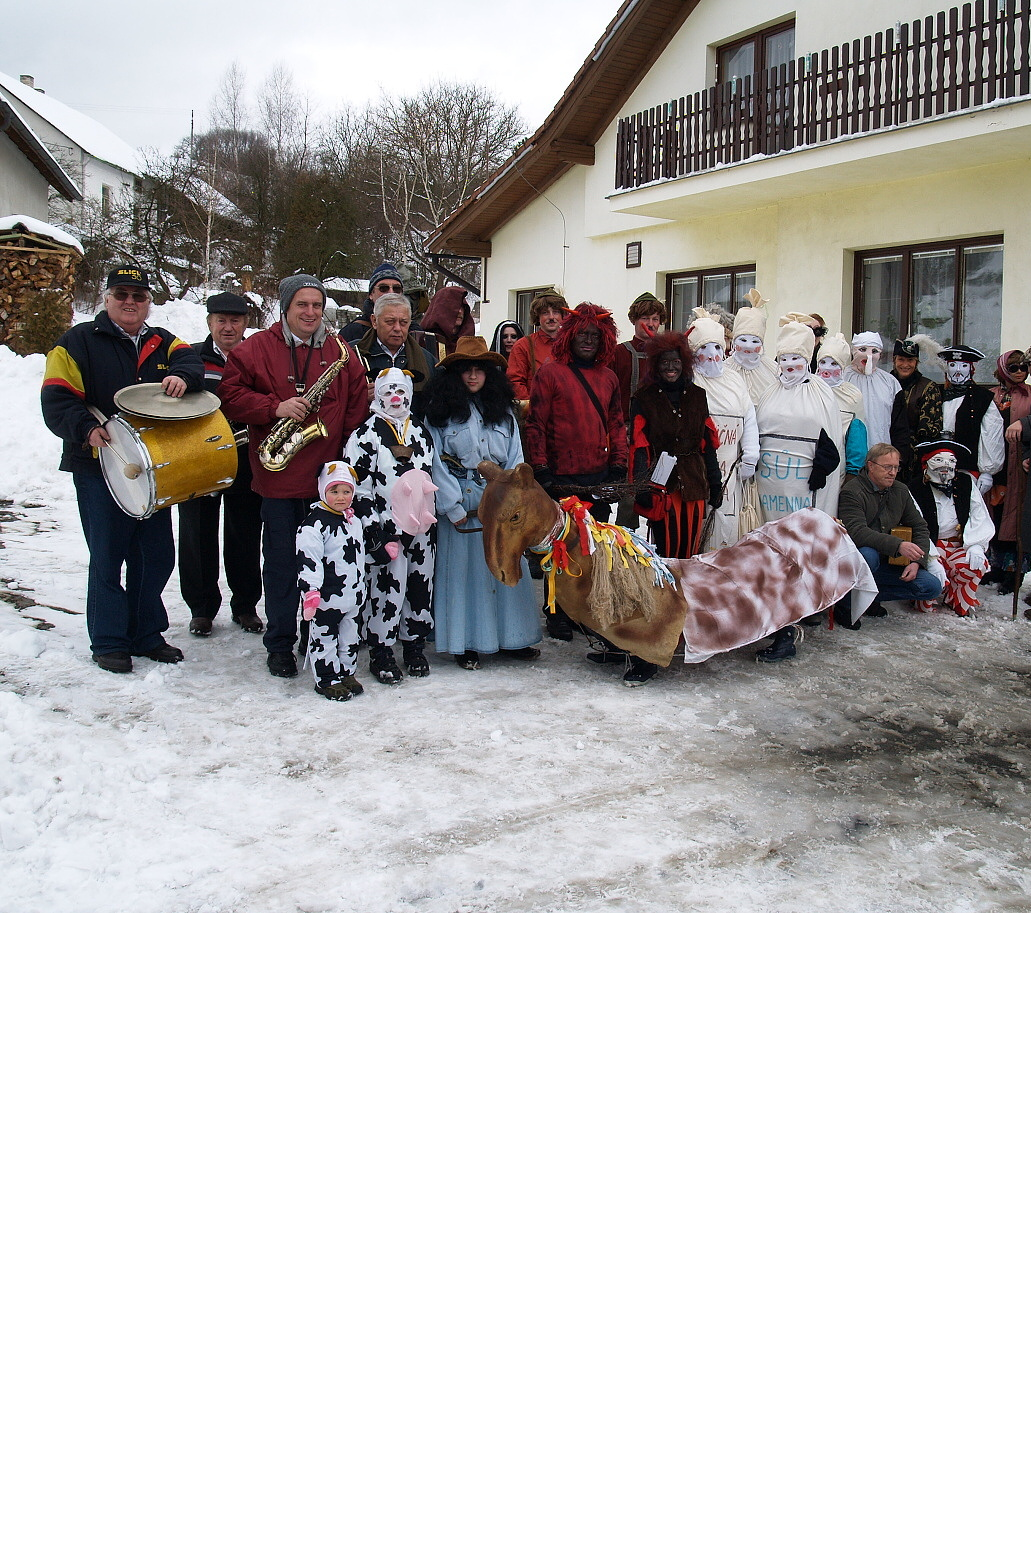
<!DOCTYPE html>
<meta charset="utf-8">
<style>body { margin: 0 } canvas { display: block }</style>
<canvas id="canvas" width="1031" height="1542"></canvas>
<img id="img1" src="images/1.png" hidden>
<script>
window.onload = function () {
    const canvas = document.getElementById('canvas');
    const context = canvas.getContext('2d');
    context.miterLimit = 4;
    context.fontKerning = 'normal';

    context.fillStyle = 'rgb(255, 255, 255)';
    context.fillRect(0, 0, 1031, 1542);
    context.drawImage(document.getElementById('img1'), 0, 0, 1031, 913);
};
</script>
